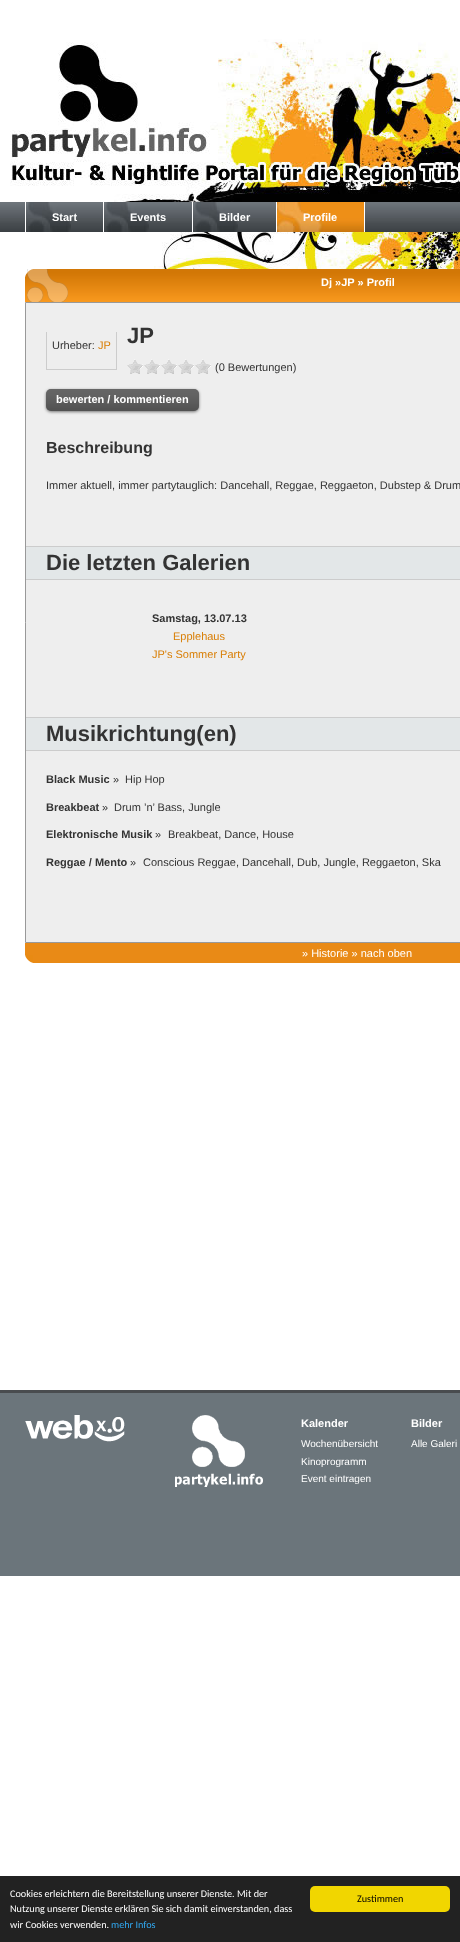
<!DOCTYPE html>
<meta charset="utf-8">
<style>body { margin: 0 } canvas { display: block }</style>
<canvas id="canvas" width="460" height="1942"></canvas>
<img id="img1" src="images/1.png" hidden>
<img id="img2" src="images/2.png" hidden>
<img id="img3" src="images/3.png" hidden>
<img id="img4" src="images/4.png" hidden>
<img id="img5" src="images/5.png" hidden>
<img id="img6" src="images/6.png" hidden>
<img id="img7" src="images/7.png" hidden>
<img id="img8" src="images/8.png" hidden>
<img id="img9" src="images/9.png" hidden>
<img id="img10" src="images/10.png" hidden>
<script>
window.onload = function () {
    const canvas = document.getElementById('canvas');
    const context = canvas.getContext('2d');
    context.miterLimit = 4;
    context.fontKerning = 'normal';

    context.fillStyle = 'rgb(255, 255, 255)';
    context.fillRect(0, 0, 460, 1942);
    context.drawImage(document.getElementById('img1'), 10, 39, 450, 337);
    context.drawImage(document.getElementById('img2'), 0, 202, 460, 30);
    context.drawImage(document.getElementById('img3'), 28, 202, 43, 30);
    context.fillRect(103, 202, 1, 30);
    context.fillRect(25, 202, 1, 30);
    context.drawImage(document.getElementById('img3'), 106, 202, 43, 30);
    context.fillRect(192, 202, 1, 30);
    context.drawImage(document.getElementById('img3'), 195, 202, 43, 30);
    context.drawImage(document.getElementById('img4'), 277, 202, 87, 30);
    context.fillRect(364, 202, 1, 30);
    context.fillRect(276, 202, 1, 30);
    context.drawImage(document.getElementById('img5'), 25, 269, 435, 33);
    context.fillStyle = 'rgb(238, 238, 238)';
    context.beginPath();
    context.rect(25.5, 302.5, 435, 640);
    context.fill();
    context.strokeStyle = 'rgb(153, 153, 153)';
    context.stroke();
    context.fillStyle = 'rgb(204, 204, 204)';
    context.fillRect(116, 332, 1, 38);
    context.fillRect(46, 369, 71, 1);
    context.fillRect(46, 332, 1, 38);
    context.drawImage(document.getElementById('img6'), 127, 359, 16, 15);
    context.drawImage(document.getElementById('img6'), 144, 359, 16, 15);
    context.drawImage(document.getElementById('img6'), 161, 359, 16, 15);
    context.drawImage(document.getElementById('img6'), 178, 359, 16, 15);
    context.drawImage(document.getElementById('img6'), 195, 359, 16, 15);
    context.fillStyle = 'rgba(0, 0, 0, 0.5)';
    context.filter = 'blur(1.5px)';
    context.beginPath();
    context.roundRect(46, 390, 153, 22, 5);
    context.fill();
    context.filter = 'none';
    context.fillStyle = 'rgb(51, 51, 51)';
    context.beginPath();
    context.roundRect(46, 389, 153, 22, 5);
    context.fill();
    context.drawImage(document.getElementById('img7'), 46, 389, 153, 22);
    context.fillStyle = 'rgb(227, 231, 232)';
    context.fillRect(26, 547, 434, 32);
    context.fillStyle = 'rgb(204, 204, 204)';
    context.fillRect(26, 546, 434, 1);
    context.fillRect(26, 579, 434, 1);
    context.fillStyle = 'rgb(227, 231, 232)';
    context.fillRect(26, 718, 434, 32);
    context.fillStyle = 'rgb(204, 204, 204)';
    context.fillRect(26, 717, 434, 1);
    context.fillRect(26, 750, 434, 1);
    context.fillStyle = 'rgb(233, 138, 22)';
    context.fillRect(25, 943, 435, 20);
    context.drawImage(document.getElementById('img8'), 25, 955, 8, 8);
    context.fillStyle = 'rgb(107, 117, 123)';
    context.fillRect(0, 1393, 460, 183);
    context.fillStyle = 'rgb(73, 76, 79)';
    context.fillRect(0, 1390, 460, 3);
    context.drawImage(document.getElementById('img9'), 25, 1415, 100, 27);
    context.drawImage(document.getElementById('img10'), 175, 1415, 88, 72);
    context.fillStyle = 'rgb(34, 34, 34)';
    context.fillRect(0, 1876, 460, 66);
    context.fillStyle = 'rgb(241, 214, 0)';
    context.beginPath();
    context.roundRect(310, 1886, 140, 26, 5);
    context.fill();
    context.font = 'bold 11px Liberation Sans';
    context.fillStyle = 'rgb(255, 255, 255)';
    context.fillText('Start', 52, 221);
    context.fillText('Events', 130, 221);
    context.fillText('Bilder', 219, 221);
    context.fillText('Profile', 303, 221);
    context.fillText('Dj »JP » Profil', 321, 286);
    context.font = 'bold 22px Liberation Sans';
    context.fillStyle = 'rgb(51, 51, 51)';
    context.fillText('JP', 127, 343);
    context.font = '11px Liberation Sans';
    context.fillText('Urheber:', 52, 349);
    context.fillStyle = 'rgb(217, 126, 4)';
    context.fillText('JP', 98, 349);
    context.fillStyle = 'rgb(51, 51, 51)';
    context.fillText('(0 Bewertungen)', 215, 371);
    context.font = 'bold 11px Liberation Sans';
    context.fillStyle = 'rgb(255, 255, 255)';
    context.fillText('bewerten / kommentieren', 56, 403);
    context.font = 'bold 16px Liberation Sans';
    context.fillStyle = 'rgb(51, 51, 51)';
    context.fillText('Beschreibung', 46, 453);
    context.font = '11px Liberation Sans';
    context.fillText('Immer aktuell, immer partytauglich: Dancehall, Reggae, Reggaeton, Dubstep & Drum', 46, 489);
    context.font = 'bold 22px Liberation Sans';
    context.fillText('Die letzten Galerien', 46, 570);
    context.font = 'bold 11px Liberation Sans';
    context.fillText('Samstag, 13.07.13', 152, 622);
    context.font = '11px Liberation Sans';
    context.fillStyle = 'rgb(217, 126, 4)';
    context.fillText('Epplehaus', 173, 640);
    context.fillText('JP\'s Sommer Party', 152, 658);
    context.font = 'bold 22px Liberation Sans';
    context.fillStyle = 'rgb(51, 51, 51)';
    context.fillText('Musikrichtung(en)', 46, 741);
    context.font = 'bold 11px Liberation Sans';
    context.fillText('Black Music', 46, 783);
    context.font = '11px Liberation Sans';
    context.fillText('»', 113, 783);
    context.fillText('Hip Hop', 125, 783);
    context.font = 'bold 11px Liberation Sans';
    context.fillText('Breakbeat', 46, 811);
    context.font = '11px Liberation Sans';
    context.fillText('»', 102, 811);
    context.fillText('Drum ’n’ Bass, Jungle', 114, 811);
    context.font = 'bold 11px Liberation Sans';
    context.fillText('Elektronische Musik', 46, 838);
    context.font = '11px Liberation Sans';
    context.fillText('»', 155, 838);
    context.fillText('Breakbeat, Dance, House', 168, 838);
    context.font = 'bold 11px Liberation Sans';
    context.fillText('Reggae / Mento', 46, 866);
    context.font = '11px Liberation Sans';
    context.fillText('»', 130, 866);
    context.fillText('Conscious Reggae, Dancehall, Dub, Jungle, Reggaeton, Ska', 143, 866);
    context.fillStyle = 'rgb(255, 255, 255)';
    context.fillText('» Historie » nach oben', 302, 957);
    context.font = 'bold 11px Liberation Sans';
    context.fillText('Kalender', 301, 1427);
    context.font = '10px Liberation Sans';
    context.fillText('Wochenübersicht', 301, 1447);
    context.fillText('Kinoprogramm', 301, 1465);
    context.fillText('Event eintragen', 301, 1482);
    context.font = 'bold 11px Liberation Sans';
    context.fillText('Bilder', 411, 1427);
    context.font = '10px Liberation Sans';
    context.fillText('Alle Galeri', 411, 1447);
    context.font = '10.2px Carlito';
    context.fillText('Cookies erleichtern die Bereitstellung unserer Dienste. Mit der', 10, 1897);
    context.fillText('Nutzung unserer Dienste erklären Sie sich damit einverstanden, dass', 10, 1912);
    context.fillText('wir Cookies verwenden.', 10, 1928);
    context.fillStyle = 'rgb(49, 168, 240)';
    context.fillText('mehr Infos', 111, 1928);
    context.fillStyle = 'rgb(0, 0, 0)';
    context.fillText('Zustimmen', 357, 1902);
};
</script>
